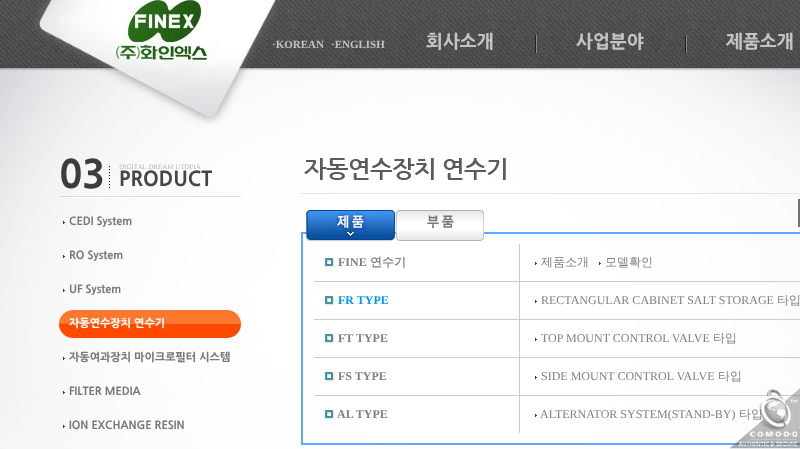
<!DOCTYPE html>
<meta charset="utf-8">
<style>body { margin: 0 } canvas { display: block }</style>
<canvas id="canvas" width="800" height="449"></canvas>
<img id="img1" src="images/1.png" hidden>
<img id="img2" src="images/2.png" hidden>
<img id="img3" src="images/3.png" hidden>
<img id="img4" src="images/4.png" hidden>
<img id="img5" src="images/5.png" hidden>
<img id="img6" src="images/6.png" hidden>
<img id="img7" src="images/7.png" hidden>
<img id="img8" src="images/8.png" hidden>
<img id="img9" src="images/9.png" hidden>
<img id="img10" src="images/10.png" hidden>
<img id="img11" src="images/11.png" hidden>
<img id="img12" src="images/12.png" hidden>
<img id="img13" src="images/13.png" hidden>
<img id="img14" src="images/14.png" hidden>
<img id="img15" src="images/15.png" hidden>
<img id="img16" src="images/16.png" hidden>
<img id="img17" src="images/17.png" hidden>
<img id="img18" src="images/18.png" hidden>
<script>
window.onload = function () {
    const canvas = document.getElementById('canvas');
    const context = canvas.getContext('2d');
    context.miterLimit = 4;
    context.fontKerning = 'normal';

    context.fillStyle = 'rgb(255, 255, 255)';
    context.fillRect(0, 0, 800, 449);
    context.drawImage(document.getElementById('img1'), 0, 68, 800, 381);
    context.drawImage(document.getElementById('img2'), 0, 0, 800, 71);
    context.drawImage(document.getElementById('img3'), 33, 0, 246, 125);
    context.drawImage(document.getElementById('img4'), 535, 35, 2, 18);
    context.drawImage(document.getElementById('img4'), 685, 35, 2, 18);
    context.drawImage(document.getElementById('img5'), 59, 196, 182, 2);
    context.drawImage(document.getElementById('img6'), 109, 166, 1, 22);
    context.drawImage(document.getElementById('img7'), 63, 221, 2, 3);
    context.drawImage(document.getElementById('img8'), 63, 255, 2, 3);
    context.drawImage(document.getElementById('img9'), 63, 289, 2, 3);
    context.drawImage(document.getElementById('img10'), 59, 310, 182, 28);
    context.drawImage(document.getElementById('img9'), 63, 357, 2, 3);
    context.drawImage(document.getElementById('img11'), 63, 391, 2, 3);
    context.drawImage(document.getElementById('img8'), 63, 425, 2, 3);
    context.fillStyle = 'rgb(228, 228, 228)';
    context.fillRect(301, 193, 499, 1);
    context.drawImage(document.getElementById('img12'), 304, 158, 202, 22);
    context.strokeStyle = 'rgb(93, 169, 255)';
    context.lineWidth = 2;
    context.strokeRect(302, 233, 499, 211);
    context.drawImage(document.getElementById('img13'), 306, 210, 89, 31);
    context.drawImage(document.getElementById('img14'), 395, 210, 89, 31);
    context.drawImage(document.getElementById('img15'), 798, 199, 2, 28);
    context.fillStyle = 'rgb(204, 204, 204)';
    context.fillRect(519, 244, 1, 37);
    context.drawImage(document.getElementById('img16'), 325, 258, 10, 10);
    context.drawImage(document.getElementById('img17'), 535, 262, 2, 3);
    context.drawImage(document.getElementById('img17'), 599, 262, 2, 3);
    context.fillRect(314, 281, 486, 1);
    context.fillRect(519, 281, 1, 38);
    context.drawImage(document.getElementById('img16'), 325, 296, 10, 10);
    context.drawImage(document.getElementById('img17'), 535, 300, 2, 3);
    context.fillRect(314, 319, 486, 1);
    context.fillRect(519, 319, 1, 38);
    context.drawImage(document.getElementById('img16'), 325, 334, 10, 10);
    context.drawImage(document.getElementById('img17'), 535, 338, 2, 3);
    context.fillRect(314, 357, 486, 1);
    context.fillRect(519, 357, 1, 38);
    context.drawImage(document.getElementById('img16'), 325, 372, 10, 10);
    context.drawImage(document.getElementById('img17'), 535, 376, 2, 3);
    context.fillRect(314, 395, 486, 1);
    context.fillRect(519, 395, 1, 38);
    context.drawImage(document.getElementById('img16'), 325, 410, 10, 10);
    context.drawImage(document.getElementById('img17'), 535, 414, 2, 3);
    context.font = 'bold 11px Liberation Serif';
    context.fillStyle = 'rgb(195, 195, 195)';
    context.fillText('·KOREAN', 272, 48);
    context.fillText('·ENGLISH', 331, 48);
    context.font = '800 18px NanumGothic';
    context.fillText('회사소개', 426, 48);
    context.fillText('사업분야', 576, 48);
    context.fillText('제품소개', 726, 48);
    context.font = '800 38px NanumGothic';
    context.fillStyle = 'rgb(59, 60, 59)';
    context.fillText('03', 59, 188);
    context.font = '7px Liberation Serif';
    context.fillStyle = 'rgb(181, 182, 176)';
    context.fillText('DIGITAL DREAM UTOPIA', 119, 169);
    context.font = '800 20px NanumGothic';
    context.fillStyle = 'rgb(70, 70, 70)';
    context.fillText('PRODUCT', 119, 186);
    context.font = '800 11px NanumGothic';
    context.fillStyle = 'rgb(122, 120, 120)';
    context.fillText('CEDI System', 69, 225);
    context.fillText('RO System', 69, 259);
    context.fillText('UF System', 69, 293);
    context.fillStyle = 'rgb(255, 255, 255)';
    context.fillText('자동연수장치 연수기', 69, 327);
    context.fillStyle = 'rgb(122, 120, 120)';
    context.fillText('자동여과장치 마이크로필터 시스템', 69, 361);
    context.fillText('FILTER MEDIA', 69, 395);
    context.fillText('ION EXCHANGE RESIN', 69, 429);
    context.font = 'bold 12px Liberation Serif';
    context.fillStyle = 'rgb(128, 128, 128)';
    context.fillText('FINE', 338, 266);
    context.font = 'bold 12px WenQuanYi Zen Hei';
    context.fillText('연수기', 370, 266);
    context.font = '500 12px WenQuanYi Zen Hei';
    context.fillText('제품소개', 541, 266);
    context.fillText('모델확인', 605, 266);
    context.font = 'bold 12px Liberation Serif';
    context.fillStyle = 'rgb(0, 153, 255)';
    context.fillText('FR TYPE', 338, 304);
    context.font = '12px Liberation Serif';
    context.fillStyle = 'rgb(128, 128, 128)';
    context.fillText('RECTANGULAR CABINET SALT STORAGE', 541, 304);
    context.font = '500 12px WenQuanYi Zen Hei';
    context.fillText('타입', 777, 304);
    context.font = 'bold 12px Liberation Serif';
    context.fillText('FT TYPE', 338, 342);
    context.font = '12px Liberation Serif';
    context.fillText('TOP MOUNT CONTROL VALVE', 541, 342);
    context.font = '500 12px WenQuanYi Zen Hei';
    context.fillText('타입', 713, 342);
    context.font = 'bold 12px Liberation Serif';
    context.fillText('FS TYPE', 338, 380);
    context.font = '12px Liberation Serif';
    context.fillText('SIDE MOUNT CONTROL VALVE', 541, 380);
    context.font = '500 12px WenQuanYi Zen Hei';
    context.fillText('타입', 718, 380);
    context.font = 'bold 12px Liberation Serif';
    context.fillText('AL TYPE', 337, 418);
    context.font = '12px Liberation Serif';
    context.fillText('ALTERNATOR SYSTEM(STAND-BY)', 540, 418);
    context.font = '500 12px WenQuanYi Zen Hei';
    context.fillText('타입', 739, 418);
    context.drawImage(document.getElementById('img18'), 729, 388, 71, 61);
};
</script>
